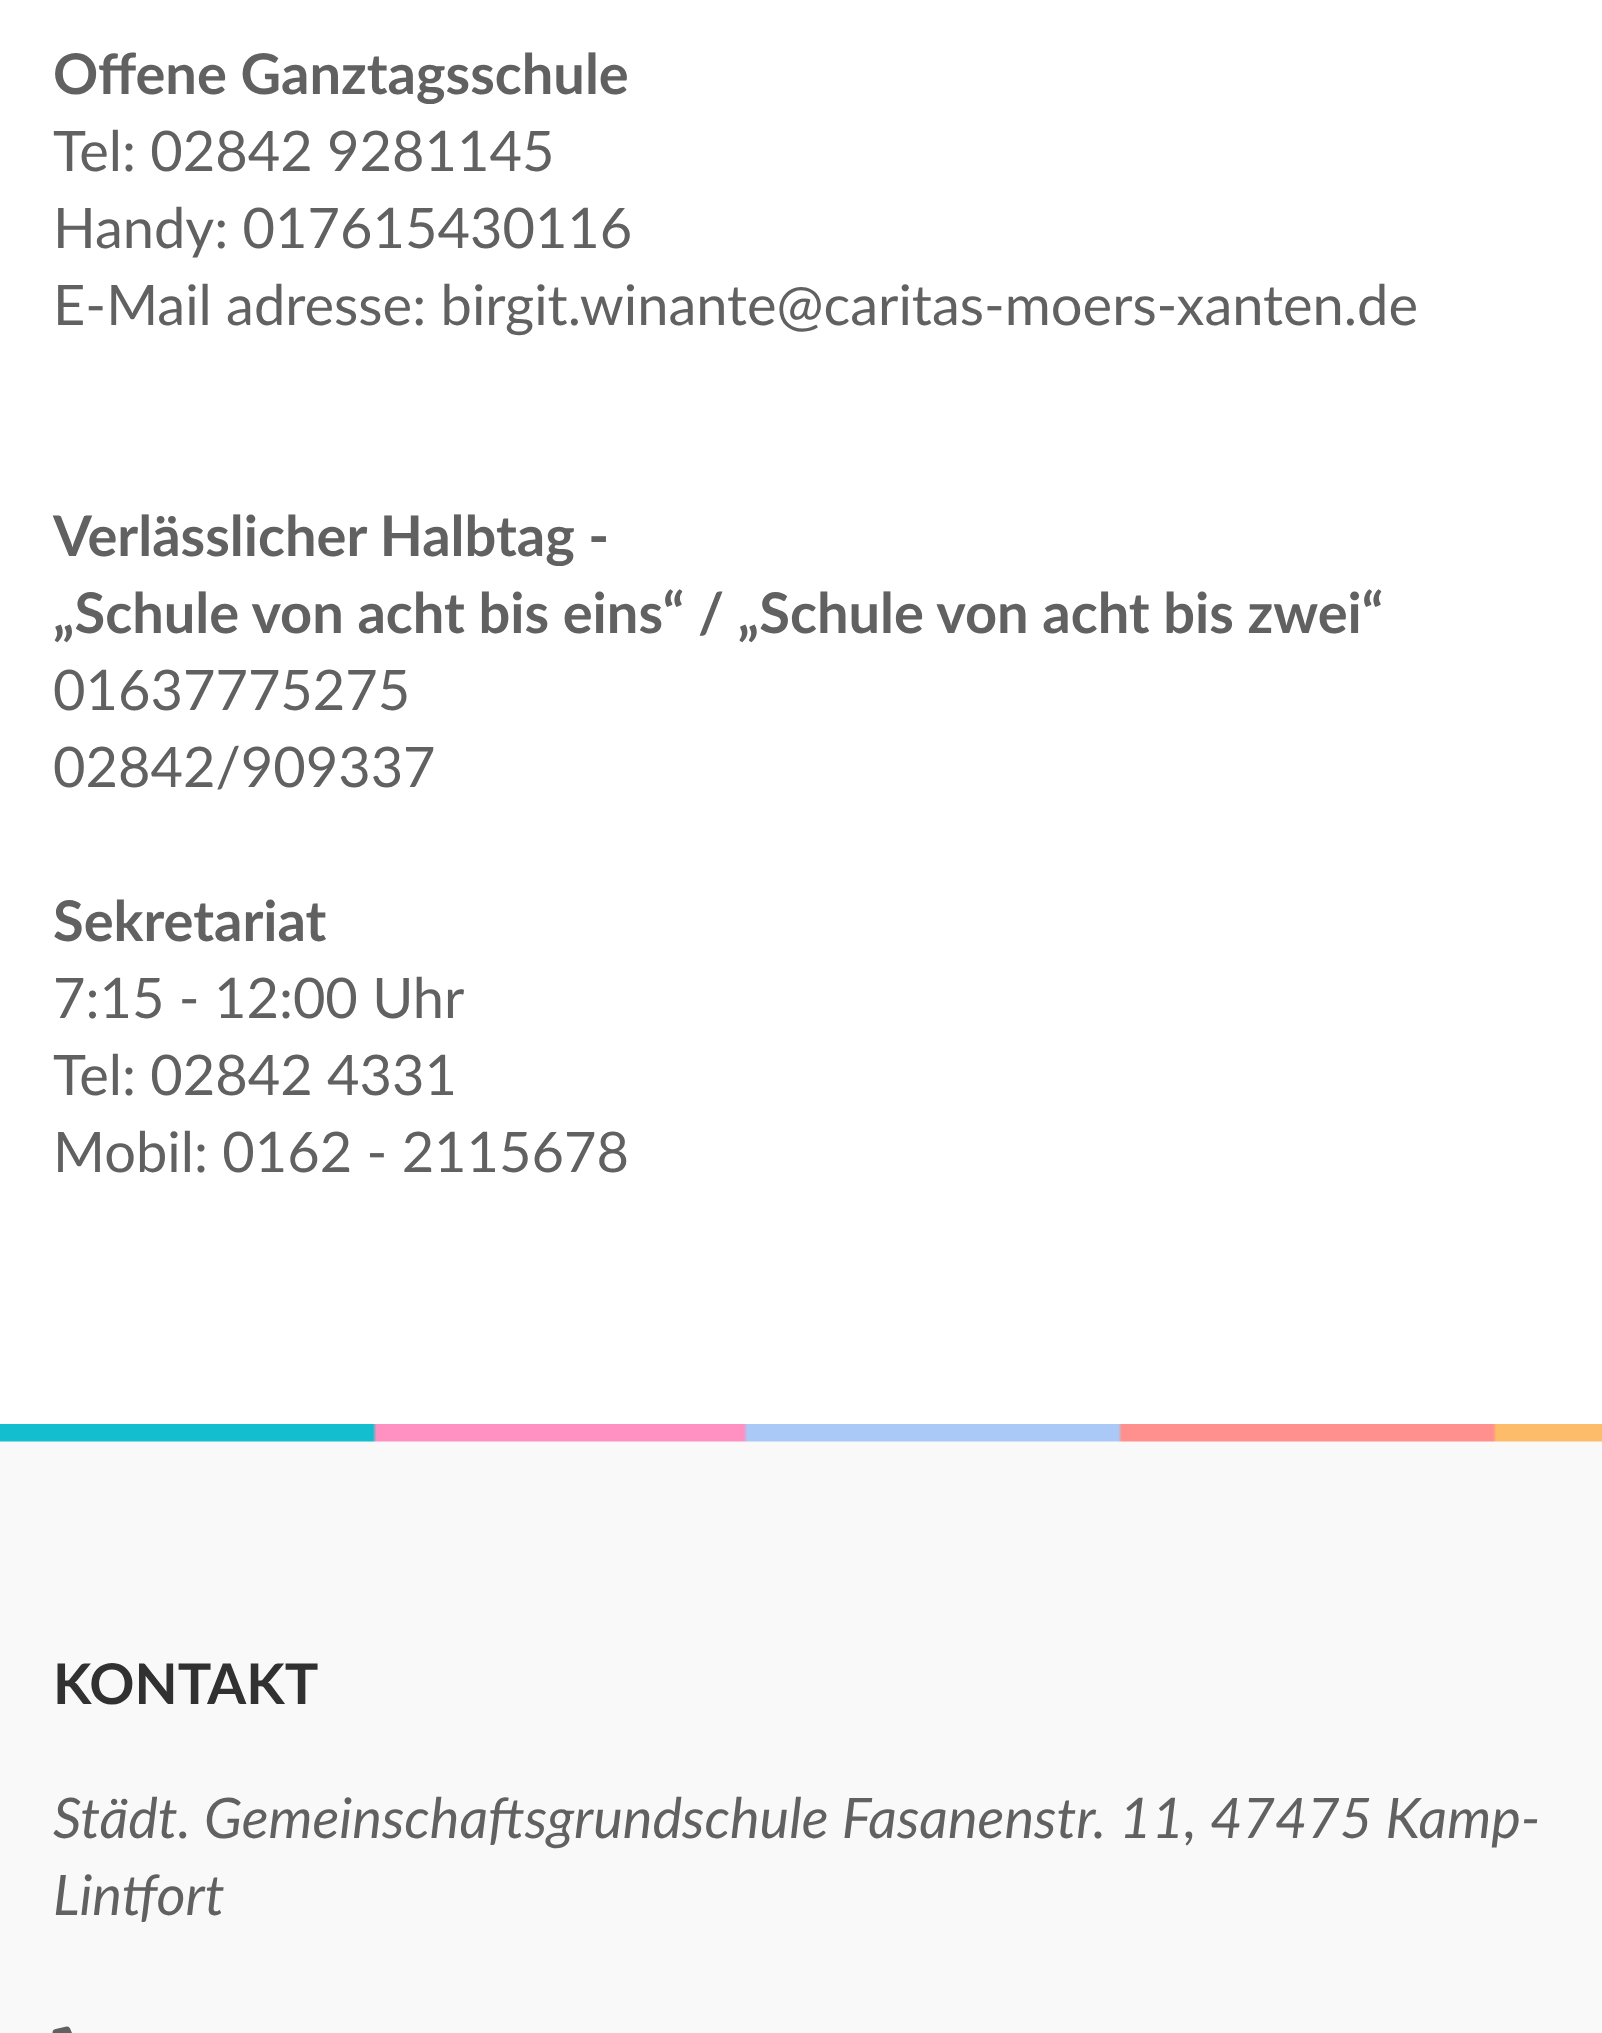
<!DOCTYPE html>
<meta charset="utf-8">
<style>body { margin: 0 } canvas { display: block }</style>
<canvas id="canvas" width="1602" height="2033"></canvas>
<img id="img1" src="images/1.png" hidden>
<img id="img2" src="images/2.png" hidden>
<script>
window.onload = function () {
    const canvas = document.getElementById('canvas');
    const context = canvas.getContext('2d');
    context.miterLimit = 4;
    context.fontKerning = 'normal';

    context.fillStyle = 'rgb(255, 255, 255)';
    context.fillRect(0, 0, 1602, 2033);
    context.fillStyle = 'rgb(249, 249, 249)';
    context.fillRect(0, 1441, 1602, 592);
    context.drawImage(document.getElementById('img1'), 0, 1424, 1602, 18);
    context.drawImage(document.getElementById('img2'), 52, 2026, 20, 7);
    context.font = 'bold 56px Lato';
    context.fillStyle = 'rgb(97, 97, 97)';
    context.fillText('Offene Ganztagsschule', 53, 94);
    context.font = '56px Lato';
    context.fillText('Tel: 02842 9281145', 53, 171);
    context.fillText('Handy: 017615430116', 53, 248);
    context.fillText('E-Mail adresse: birgit.winante@caritas-moers-xanten.de', 53, 325);
    context.font = 'bold 56px Lato';
    context.fillText('Verlässlicher Halbtag -', 53, 556);
    context.fillText('„Schule von acht bis eins“ / „Schule von acht bis zwei“', 53, 633);
    context.font = '56px Lato';
    context.fillText('01637775275', 53, 710);
    context.fillText('02842/909337', 53, 787);
    context.font = 'bold 56px Lato';
    context.fillText('Sekretariat', 53, 941);
    context.font = '56px Lato';
    context.fillText('7:15 - 12:00 Uhr', 53, 1018);
    context.fillText('Tel: 02842 4331', 53, 1095);
    context.fillText('Mobil: 0162 - 2115678', 53, 1172);
    context.font = 'bold 56px Lato';
    context.fillStyle = 'rgb(49, 49, 49)';
    context.fillText('KONTAKT', 53, 1704);
    context.font = 'italic 56px Lato';
    context.fillStyle = 'rgb(97, 97, 97)';
    context.fillText('Städt. Gemeinschaftsgrundschule Fasanenstr. 11, 47475 Kamp-', 53, 1838);
    context.fillText('Lintfort', 53, 1915);
};
</script>
